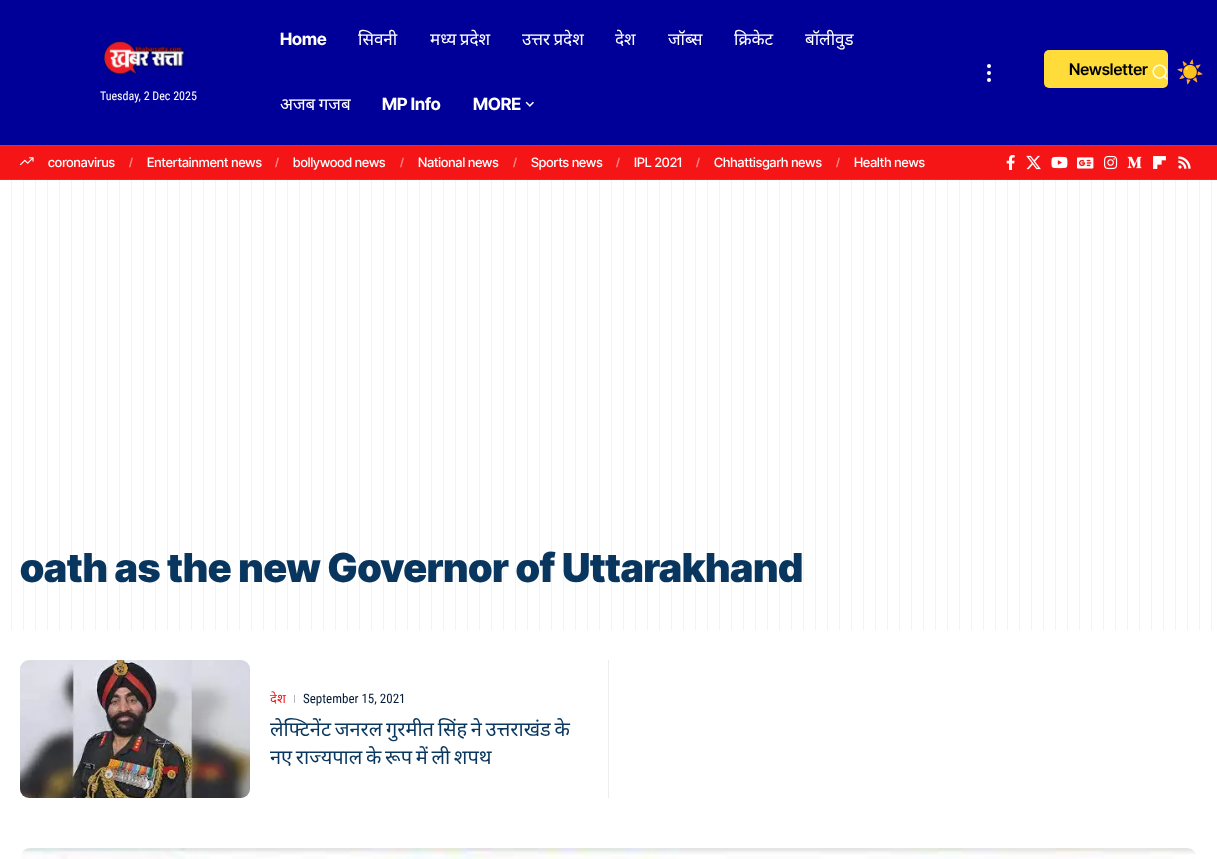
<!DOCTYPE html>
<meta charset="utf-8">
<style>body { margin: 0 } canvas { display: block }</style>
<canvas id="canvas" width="1217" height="859"></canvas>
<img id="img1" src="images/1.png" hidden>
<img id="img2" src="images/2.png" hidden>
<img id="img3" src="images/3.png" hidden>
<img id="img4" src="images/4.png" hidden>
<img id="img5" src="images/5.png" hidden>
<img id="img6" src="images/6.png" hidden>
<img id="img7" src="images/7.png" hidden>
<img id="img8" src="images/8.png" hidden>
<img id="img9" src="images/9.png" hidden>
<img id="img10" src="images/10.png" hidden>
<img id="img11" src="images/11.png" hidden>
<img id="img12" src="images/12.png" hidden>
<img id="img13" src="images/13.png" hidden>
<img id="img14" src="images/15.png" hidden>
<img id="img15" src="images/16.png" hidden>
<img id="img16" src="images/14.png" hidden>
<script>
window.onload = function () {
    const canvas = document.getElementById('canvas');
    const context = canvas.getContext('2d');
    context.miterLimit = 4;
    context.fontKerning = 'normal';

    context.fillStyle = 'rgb(255, 255, 255)';
    context.fillRect(0, 0, 1217, 859);
    context.fillStyle = 'rgb(0, 0, 152)';
    context.fillRect(0, 0, 1217, 145);
    context.drawImage(document.getElementById('img1'), 103, 40, 82, 36);
    context.drawImage(document.getElementById('img2'), 525, 101, 9, 6);
    context.fillStyle = 'rgb(255, 255, 255)';
    context.beginPath();
    context.arc(989, 66, 2, 0, 2 * Math.PI);
    context.fill();
    context.beginPath();
    context.arc(989, 73, 2, 0, 2 * Math.PI);
    context.fill();
    context.beginPath();
    context.arc(989, 80, 2, 0, 2 * Math.PI);
    context.fill();
    context.fillStyle = 'rgb(255, 220, 57)';
    context.beginPath();
    context.roundRect(1044, 50, 124, 38, 5);
    context.fill();
    context.drawImage(document.getElementById('img3'), 1152, 64, 16, 16);
    context.drawImage(document.getElementById('img4'), 1177, 59, 26, 26);
    context.fillStyle = 'rgb(245, 20, 22)';
    context.fillRect(0, 146, 1217, 33);
    context.fillStyle = 'rgb(216, 51, 52)';
    context.fillRect(0, 145, 1217, 1);
    context.fillRect(0, 179, 1217, 1);
    context.drawImage(document.getElementById('img5'), 20, 157, 14, 9);
    context.drawImage(document.getElementById('img6'), 1006, 155, 9, 15);
    context.drawImage(document.getElementById('img7'), 1026, 155, 15, 15);
    context.drawImage(document.getElementById('img8'), 1051, 156, 17, 13);
    context.drawImage(document.getElementById('img9'), 1077, 157, 17, 12);
    context.drawImage(document.getElementById('img10'), 1104, 155, 14, 15);
    context.drawImage(document.getElementById('img11'), 1127, 156, 15, 13);
    context.drawImage(document.getElementById('img12'), 1153, 156, 13, 13);
    context.drawImage(document.getElementById('img13'), 1178, 156, 13, 13);
    context.drawImage(document.getElementById('img14'), 20, 660, 230, 138);
    context.fillStyle = 'rgb(179, 186, 194)';
    context.fillRect(294, 695, 1, 8);
    context.fillStyle = 'rgb(237, 237, 237)';
    context.fillRect(608, 660, 1, 138);
    context.drawImage(document.getElementById('img15'), 21, 848, 1175, 11);
    context.font = '12px Roboto Condensed';
    context.fillStyle = 'rgb(255, 255, 255)';
    context.fillText('Tuesday, 2 Dec 2025', 100, 100);
    context.font = 'bold 17px Inter Tight';
    context.fillText('Home', 280, 45);
    context.font = '17px Noto Sans';
    context.fillText('सिवनी', 358, 45);
    context.wordSpacing = '-1px';
    context.fillText('मध्य प्रदेश', 430, 45);
    context.fillText('उत्तर प्रदेश', 522, 45);
    context.wordSpacing = '0px';
    context.fillText('देश', 615, 45);
    context.fillText('जॉब्स', 668, 45);
    context.fillText('क्रिकेट', 734, 45);
    context.fillText('बॉलीवुड', 805, 45);
    context.wordSpacing = '-1px';
    context.fillText('अजब गजब', 280, 110);
    context.wordSpacing = '0px';
    context.font = 'bold 17px Inter Tight';
    context.fillText('MP Info', 382, 110);
    context.fillText('MORE', 473, 110);
    context.font = '600 16px Inter Tight';
    context.fillStyle = 'rgb(0, 0, 0)';
    context.fillText('Newsletter', 1069, 75);
    context.font = '500 13px Inter Tight';
    context.fillStyle = 'rgb(255, 255, 255)';
    context.fillText('coronavirus', 48, 167);
    context.font = 'bold 11px Inter Tight';
    context.fillStyle = 'rgb(250, 130, 131)';
    context.fillText('/', 129, 166);
    context.font = '500 13px Inter Tight';
    context.fillStyle = 'rgb(255, 255, 255)';
    context.fillText('Entertainment news', 147, 167);
    context.font = 'bold 11px Inter Tight';
    context.fillStyle = 'rgb(250, 130, 131)';
    context.fillText('/', 275, 166);
    context.font = '500 13px Inter Tight';
    context.fillStyle = 'rgb(255, 255, 255)';
    context.fillText('bollywood news', 293, 167);
    context.font = 'bold 11px Inter Tight';
    context.fillStyle = 'rgb(250, 130, 131)';
    context.fillText('/', 400, 166);
    context.font = '500 13px Inter Tight';
    context.fillStyle = 'rgb(255, 255, 255)';
    context.fillText('National news', 418, 167);
    context.font = 'bold 11px Inter Tight';
    context.fillStyle = 'rgb(250, 130, 131)';
    context.fillText('/', 513, 166);
    context.font = '500 13px Inter Tight';
    context.fillStyle = 'rgb(255, 255, 255)';
    context.fillText('Sports news', 531, 167);
    context.font = 'bold 11px Inter Tight';
    context.fillStyle = 'rgb(250, 130, 131)';
    context.fillText('/', 616, 166);
    context.font = '500 13px Inter Tight';
    context.fillStyle = 'rgb(255, 255, 255)';
    context.fillText('IPL 2021', 634, 167);
    context.font = 'bold 11px Inter Tight';
    context.fillStyle = 'rgb(250, 130, 131)';
    context.fillText('/', 696, 166);
    context.font = '500 13px Inter Tight';
    context.fillStyle = 'rgb(255, 255, 255)';
    context.fillText('Chhattisgarh news', 714, 167);
    context.font = 'bold 11px Inter Tight';
    context.fillStyle = 'rgb(250, 130, 131)';
    context.fillText('/', 836, 166);
    context.font = '500 13px Inter Tight';
    context.fillStyle = 'rgb(255, 255, 255)';
    context.fillText('Health news', 854, 167);
    context.font = '900 40px Inter Tight';
    context.fillStyle = 'rgb(9, 54, 94)';
    context.fillText('oath as the new Governor of Uttarakhand', 20, 582);
    context.drawImage(document.getElementById('img16'), 11, 180, 1201, 450);
    context.font = '13px Noto Sans';
    context.fillStyle = 'rgb(245, 20, 22)';
    context.fillText('देश', 270, 703);
    context.font = '13px Roboto Condensed';
    context.fillStyle = 'rgb(3, 25, 52)';
    context.fillText('September 15, 2021', 303, 703);
    context.wordSpacing = '-1.5px';
    context.font = '20px Noto Sans';
    context.fillStyle = 'rgb(9, 54, 94)';
    context.fillText('लेफ्टिनेंट जनरल गुरमीत सिंह ने उत्तराखंड के', 270, 736);
    context.fillText('नए राज्यपाल के रूप में ली शपथ', 270, 764);
};
</script>
